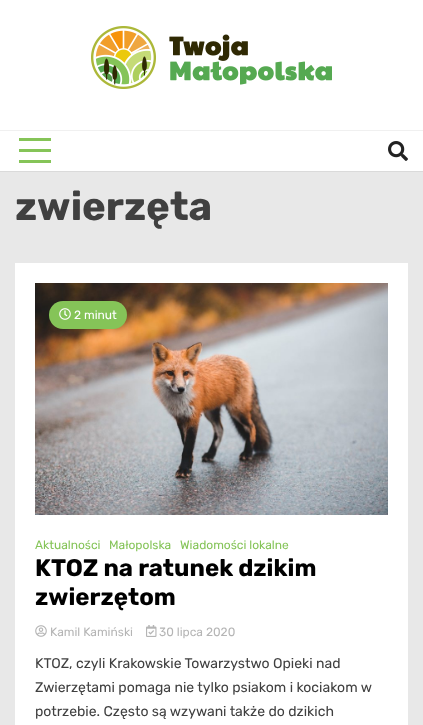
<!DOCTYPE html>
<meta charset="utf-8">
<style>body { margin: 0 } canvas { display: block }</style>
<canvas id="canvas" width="423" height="725"></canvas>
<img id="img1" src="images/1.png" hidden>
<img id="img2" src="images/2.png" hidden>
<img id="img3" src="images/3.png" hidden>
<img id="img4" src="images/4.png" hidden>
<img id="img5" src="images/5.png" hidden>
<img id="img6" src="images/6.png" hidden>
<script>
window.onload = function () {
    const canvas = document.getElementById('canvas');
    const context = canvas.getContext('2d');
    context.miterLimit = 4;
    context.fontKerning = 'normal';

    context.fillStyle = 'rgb(232, 232, 232)';
    context.fillRect(0, 0, 423, 725);
    context.fillStyle = 'rgb(255, 255, 255)';
    context.fillRect(0, 0, 423, 131);
    context.drawImage(document.getElementById('img1'), 91, 26, 241, 63);
    context.strokeStyle = 'rgba(0, 0, 0, 0.06)';
    context.strokeRect(-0.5, 130.5, 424, 41);
    context.fillRect(0, 131, 423, 40);
    context.fillStyle = 'rgb(133, 196, 88)';
    context.fillRect(19, 138, 32, 3);
    context.fillRect(19, 149, 32, 3);
    context.fillRect(19, 160, 32, 3);
    context.drawImage(document.getElementById('img2'), 388, 141, 20, 20);
    context.fillStyle = 'rgb(255, 255, 255)';
    context.fillRect(15, 263, 393, 462);
    context.drawImage(document.getElementById('img3'), 35, 283, 353, 232);
    context.fillStyle = 'rgb(133, 196, 88)';
    context.beginPath();
    context.roundRect(49, 301, 78, 28, 14);
    context.fill();
    context.drawImage(document.getElementById('img4'), 59, 308, 12, 12);
    context.drawImage(document.getElementById('img5'), 35, 625, 12, 12);
    context.drawImage(document.getElementById('img6'), 146, 625, 11, 12);
    context.font = 'bold 40px Rubik';
    context.fillStyle = 'rgb(64, 64, 64)';
    context.fillText('zwierzęta', 15, 220);
    context.font = '12px Rubik';
    context.fillStyle = 'rgb(255, 255, 255)';
    context.fillText('2 minut', 74, 319);
    context.fillStyle = 'rgb(133, 196, 88)';
    context.fillText('Aktualności', 35, 549);
    context.fillText('Małopolska', 109, 549);
    context.fillText('Wiadomości lokalne', 180, 549);
    context.font = 'bold 24px Rubik';
    context.fillStyle = 'rgb(0, 0, 0)';
    context.fillText('KTOZ na ratunek dzikim', 35, 576);
    context.fillText('zwierzętom', 35, 605);
    context.font = '12px Rubik';
    context.fillStyle = 'rgb(181, 181, 181)';
    context.fillText('Kamil Kamiński', 50, 636);
    context.fillText('30 lipca 2020', 159, 636);
    context.font = '14px Rubik';
    context.fillStyle = 'rgb(64, 64, 64)';
    context.fillText('KTOZ, czyli Krakowskie Towarzystwo Opieki nad', 35, 668);
    context.fillText('Zwierzętami pomaga nie tylko psiakom i kociakom w', 35, 692);
    context.fillText('potrzebie. Często są wzywani także do dzikich', 35, 716);
};
</script>
